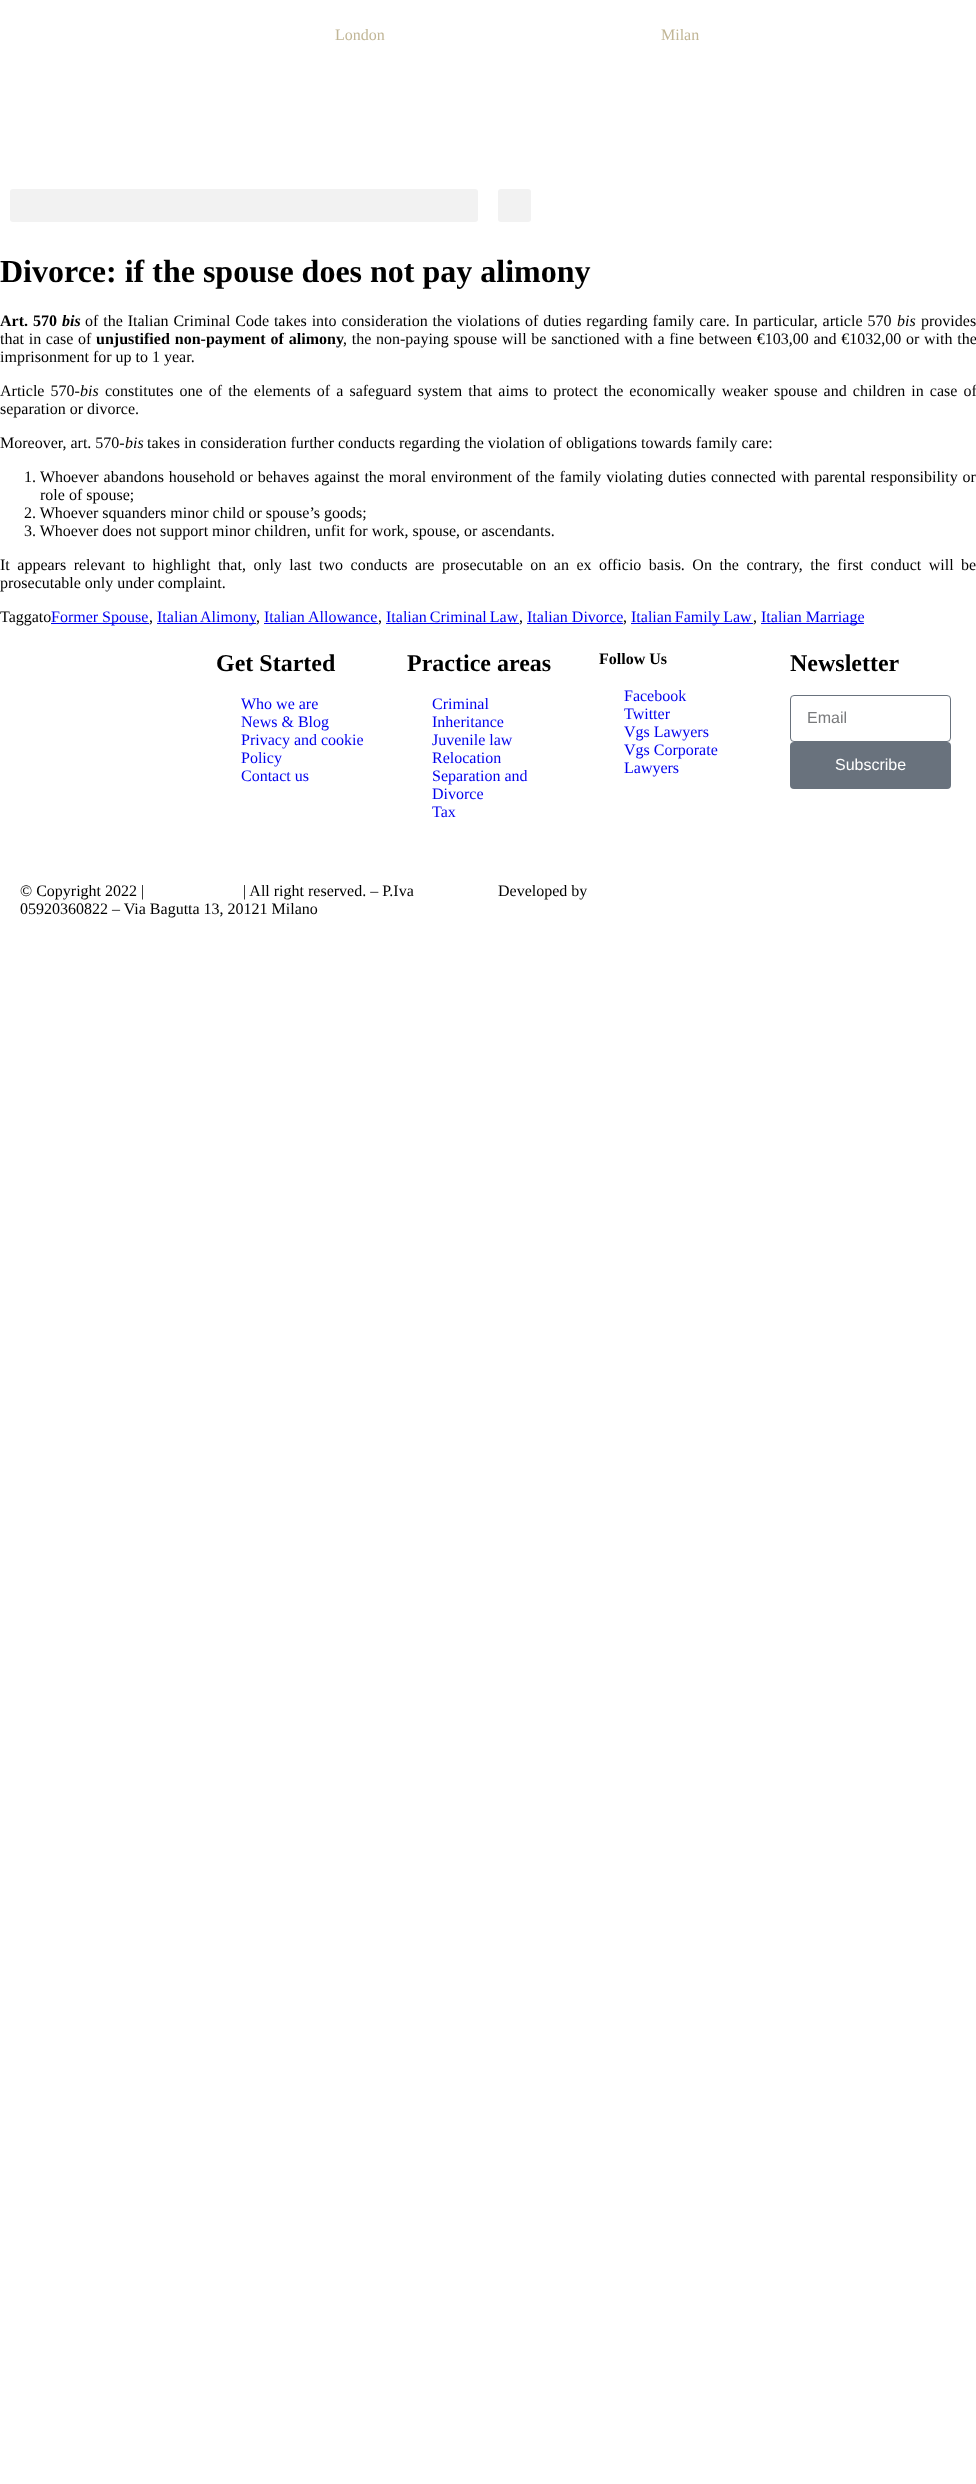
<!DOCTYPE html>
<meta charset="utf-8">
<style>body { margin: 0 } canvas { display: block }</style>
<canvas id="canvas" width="976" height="2484"></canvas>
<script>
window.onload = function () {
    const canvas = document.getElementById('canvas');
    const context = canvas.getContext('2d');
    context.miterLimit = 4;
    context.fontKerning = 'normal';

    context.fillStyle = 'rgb(255, 255, 255)';
    context.fillRect(0, 0, 976, 2484);
    context.fillStyle = 'rgb(242, 242, 242)';
    context.beginPath();
    context.roundRect(10, 189, 468, 33, 3);
    context.fill();
    context.beginPath();
    context.roundRect(498, 189, 33, 33, 3);
    context.fill();
    context.fillStyle = 'rgb(0, 0, 238)';
    context.fillRect(51, 623, 98, 1);
    context.fillRect(157, 623, 99, 1);
    context.fillRect(264, 623, 114, 1);
    context.fillRect(386, 623, 133, 1);
    context.fillRect(527, 623, 96, 1);
    context.fillRect(631, 623, 122, 1);
    context.fillRect(761, 623, 103, 1);
    context.beginPath();
    context.roundRect(790.5, 695.5, 160, 46, 3.5);
    context.strokeStyle = 'rgb(105, 114, 125)';
    context.stroke();
    context.fillStyle = 'rgb(105, 114, 125)';
    context.beginPath();
    context.roundRect(790, 742, 161, 47, 4);
    context.fill();
    context.font = '16px Liberation Serif';
    context.fillStyle = 'rgb(193, 182, 150)';
    context.fillText('London', 335, 40);
    context.fillText('Milan', 661, 40);
    context.font = 'bold 32px Liberation Serif';
    context.fillStyle = 'rgb(0, 0, 0)';
    context.fillText('Divorce: if the spouse does not pay alimony', 0, 282);
    context.wordSpacing = '0.9px';
    context.font = 'bold 16px Liberation Serif';
    context.fillText('Art. 570', 0, 326);
    context.wordSpacing = '0px';
    context.font = 'italic bold 16px Liberation Serif';
    context.fillText('bis', 62, 326);
    context.wordSpacing = '0.9px';
    context.font = '16px Liberation Serif';
    context.fillText('of the Italian Criminal Code takes into consideration the violations of duties regarding family care. In particular, article 570', 85, 326);
    context.wordSpacing = '0px';
    context.font = 'italic 16px Liberation Serif';
    context.fillText('bis', 897, 326);
    context.font = '16px Liberation Serif';
    context.fillText('provides', 921, 326);
    context.wordSpacing = '0.7px';
    context.fillText('that in case of', 0, 344);
    context.wordSpacing = '1px';
    context.font = 'bold 16px Liberation Serif';
    context.fillText('unjustified non-payment of alimony', 96, 344);
    context.wordSpacing = '0.7px';
    context.font = '16px Liberation Serif';
    context.fillText(', the non-paying spouse will be sanctioned with a fine between €103,00 and €1032,00 or with the', 343, 344);
    context.wordSpacing = '0px';
    context.fillText('imprisonment for up to 1 year.', 0, 362);
    context.wordSpacing = '2.1px';
    context.fillText('Article 570-', 0, 396);
    context.wordSpacing = '0px';
    context.font = 'italic 16px Liberation Serif';
    context.fillText('bis', 80, 396);
    context.wordSpacing = '2.1px';
    context.font = '16px Liberation Serif';
    context.fillText('constitutes one of the elements of a safeguard system that aims to protect the economically weaker spouse and children in case of', 105, 396);
    context.wordSpacing = '0px';
    context.fillText('separation or divorce.', 0, 414);
    context.fillText('Moreover, art. 570-', 0, 448);
    context.font = 'italic 16px Liberation Serif';
    context.fillText('bis', 125, 448);
    context.font = '16px Liberation Serif';
    context.fillText('takes in consideration further conducts regarding the violation of obligations towards family care:', 147, 448);
    context.fillText('1.', 24, 482);
    context.wordSpacing = '0.9px';
    context.fillText('Whoever abandons household or behaves against the moral environment of the family violating duties connected with parental responsibility or', 40, 482);
    context.wordSpacing = '0px';
    context.fillText('role of spouse;', 40, 500);
    context.fillText('2. Whoever squanders minor child or spouse’s goods;', 24, 518);
    context.fillText('3. Whoever does not support minor children, unfit for work, spouse, or ascendants.', 24, 536);
    context.wordSpacing = '3.5px';
    context.fillText('It appears relevant to highlight that, only last two conducts are prosecutable on an ex officio basis. On the contrary, the first conduct will be', 0, 570);
    context.wordSpacing = '0px';
    context.fillText('prosecutable only under complaint.', 0, 588);
    context.fillText('Taggato', 0, 622);
    context.fillStyle = 'rgb(0, 0, 238)';
    context.fillText('Former Spouse', 51, 622);
    context.fillStyle = 'rgb(0, 0, 0)';
    context.fillText(',', 149, 622);
    context.wordSpacing = '-1px';
    context.fillStyle = 'rgb(0, 0, 238)';
    context.fillText('Italian Alimony', 157, 622);
    context.wordSpacing = '0px';
    context.fillStyle = 'rgb(0, 0, 0)';
    context.fillText(',', 256, 622);
    context.fillStyle = 'rgb(0, 0, 238)';
    context.fillText('Italian Allowance', 264, 622);
    context.fillStyle = 'rgb(0, 0, 0)';
    context.fillText(',', 378, 622);
    context.wordSpacing = '-1px';
    context.fillStyle = 'rgb(0, 0, 238)';
    context.fillText('Italian Criminal Law', 386, 622);
    context.wordSpacing = '0px';
    context.fillStyle = 'rgb(0, 0, 0)';
    context.fillText(',', 519, 622);
    context.fillStyle = 'rgb(0, 0, 238)';
    context.fillText('Italian Divorce', 527, 622);
    context.fillStyle = 'rgb(0, 0, 0)';
    context.fillText(',', 623, 622);
    context.wordSpacing = '-1px';
    context.fillStyle = 'rgb(0, 0, 238)';
    context.fillText('Italian Family Law', 631, 622);
    context.wordSpacing = '0px';
    context.fillStyle = 'rgb(0, 0, 0)';
    context.fillText(',', 753, 622);
    context.fillStyle = 'rgb(0, 0, 238)';
    context.fillText('Italian Marriage', 761, 622);
    context.font = 'bold 24px Liberation Serif';
    context.fillStyle = 'rgb(0, 0, 0)';
    context.fillText('Get Started', 216, 671);
    context.font = '16px Liberation Serif';
    context.fillStyle = 'rgb(0, 0, 238)';
    context.fillText('Who we are', 241, 709);
    context.fillText('News & Blog', 241, 727);
    context.fillText('Privacy and cookie', 241, 745);
    context.fillText('Policy', 241, 763);
    context.fillText('Contact us', 241, 781);
    context.font = 'bold 24px Liberation Serif';
    context.fillStyle = 'rgb(0, 0, 0)';
    context.fillText('Practice areas', 407, 671);
    context.font = '16px Liberation Serif';
    context.fillStyle = 'rgb(0, 0, 238)';
    context.fillText('Criminal', 432, 709);
    context.fillText('Inheritance', 432, 727);
    context.fillText('Juvenile law', 432, 745);
    context.fillText('Relocation', 432, 763);
    context.fillText('Separation and', 432, 781);
    context.fillText('Divorce', 432, 799);
    context.fillText('Tax', 432, 817);
    context.font = 'bold 16px Liberation Serif';
    context.fillStyle = 'rgb(0, 0, 0)';
    context.fillText('Follow Us', 599, 664);
    context.font = '16px Liberation Serif';
    context.fillStyle = 'rgb(0, 0, 238)';
    context.fillText('Facebook', 624, 701);
    context.fillText('Twitter', 624, 719);
    context.fillText('Vgs Lawyers', 624, 737);
    context.fillText('Vgs Corporate', 624, 755);
    context.fillText('Lawyers', 624, 773);
    context.font = 'bold 24px Liberation Serif';
    context.fillStyle = 'rgb(0, 0, 0)';
    context.fillText('Newsletter', 790, 671);
    context.font = '16px Liberation Sans';
    context.fillStyle = 'rgb(121, 122, 124)';
    context.fillText('Email', 807, 723);
    context.fillStyle = 'rgb(255, 255, 255)';
    context.fillText('Subscribe', 835, 770);
    context.font = '16px Liberation Serif';
    context.fillStyle = 'rgb(0, 0, 0)';
    context.fillText('© Copyright 2022 |', 20, 896);
    context.fillText('| All right reserved. – P.Iva', 243, 896);
    context.fillText('05920360822 – Via Bagutta 13, 20121 Milano', 20, 914);
    context.fillText('Developed by', 498, 896);
};
</script>
